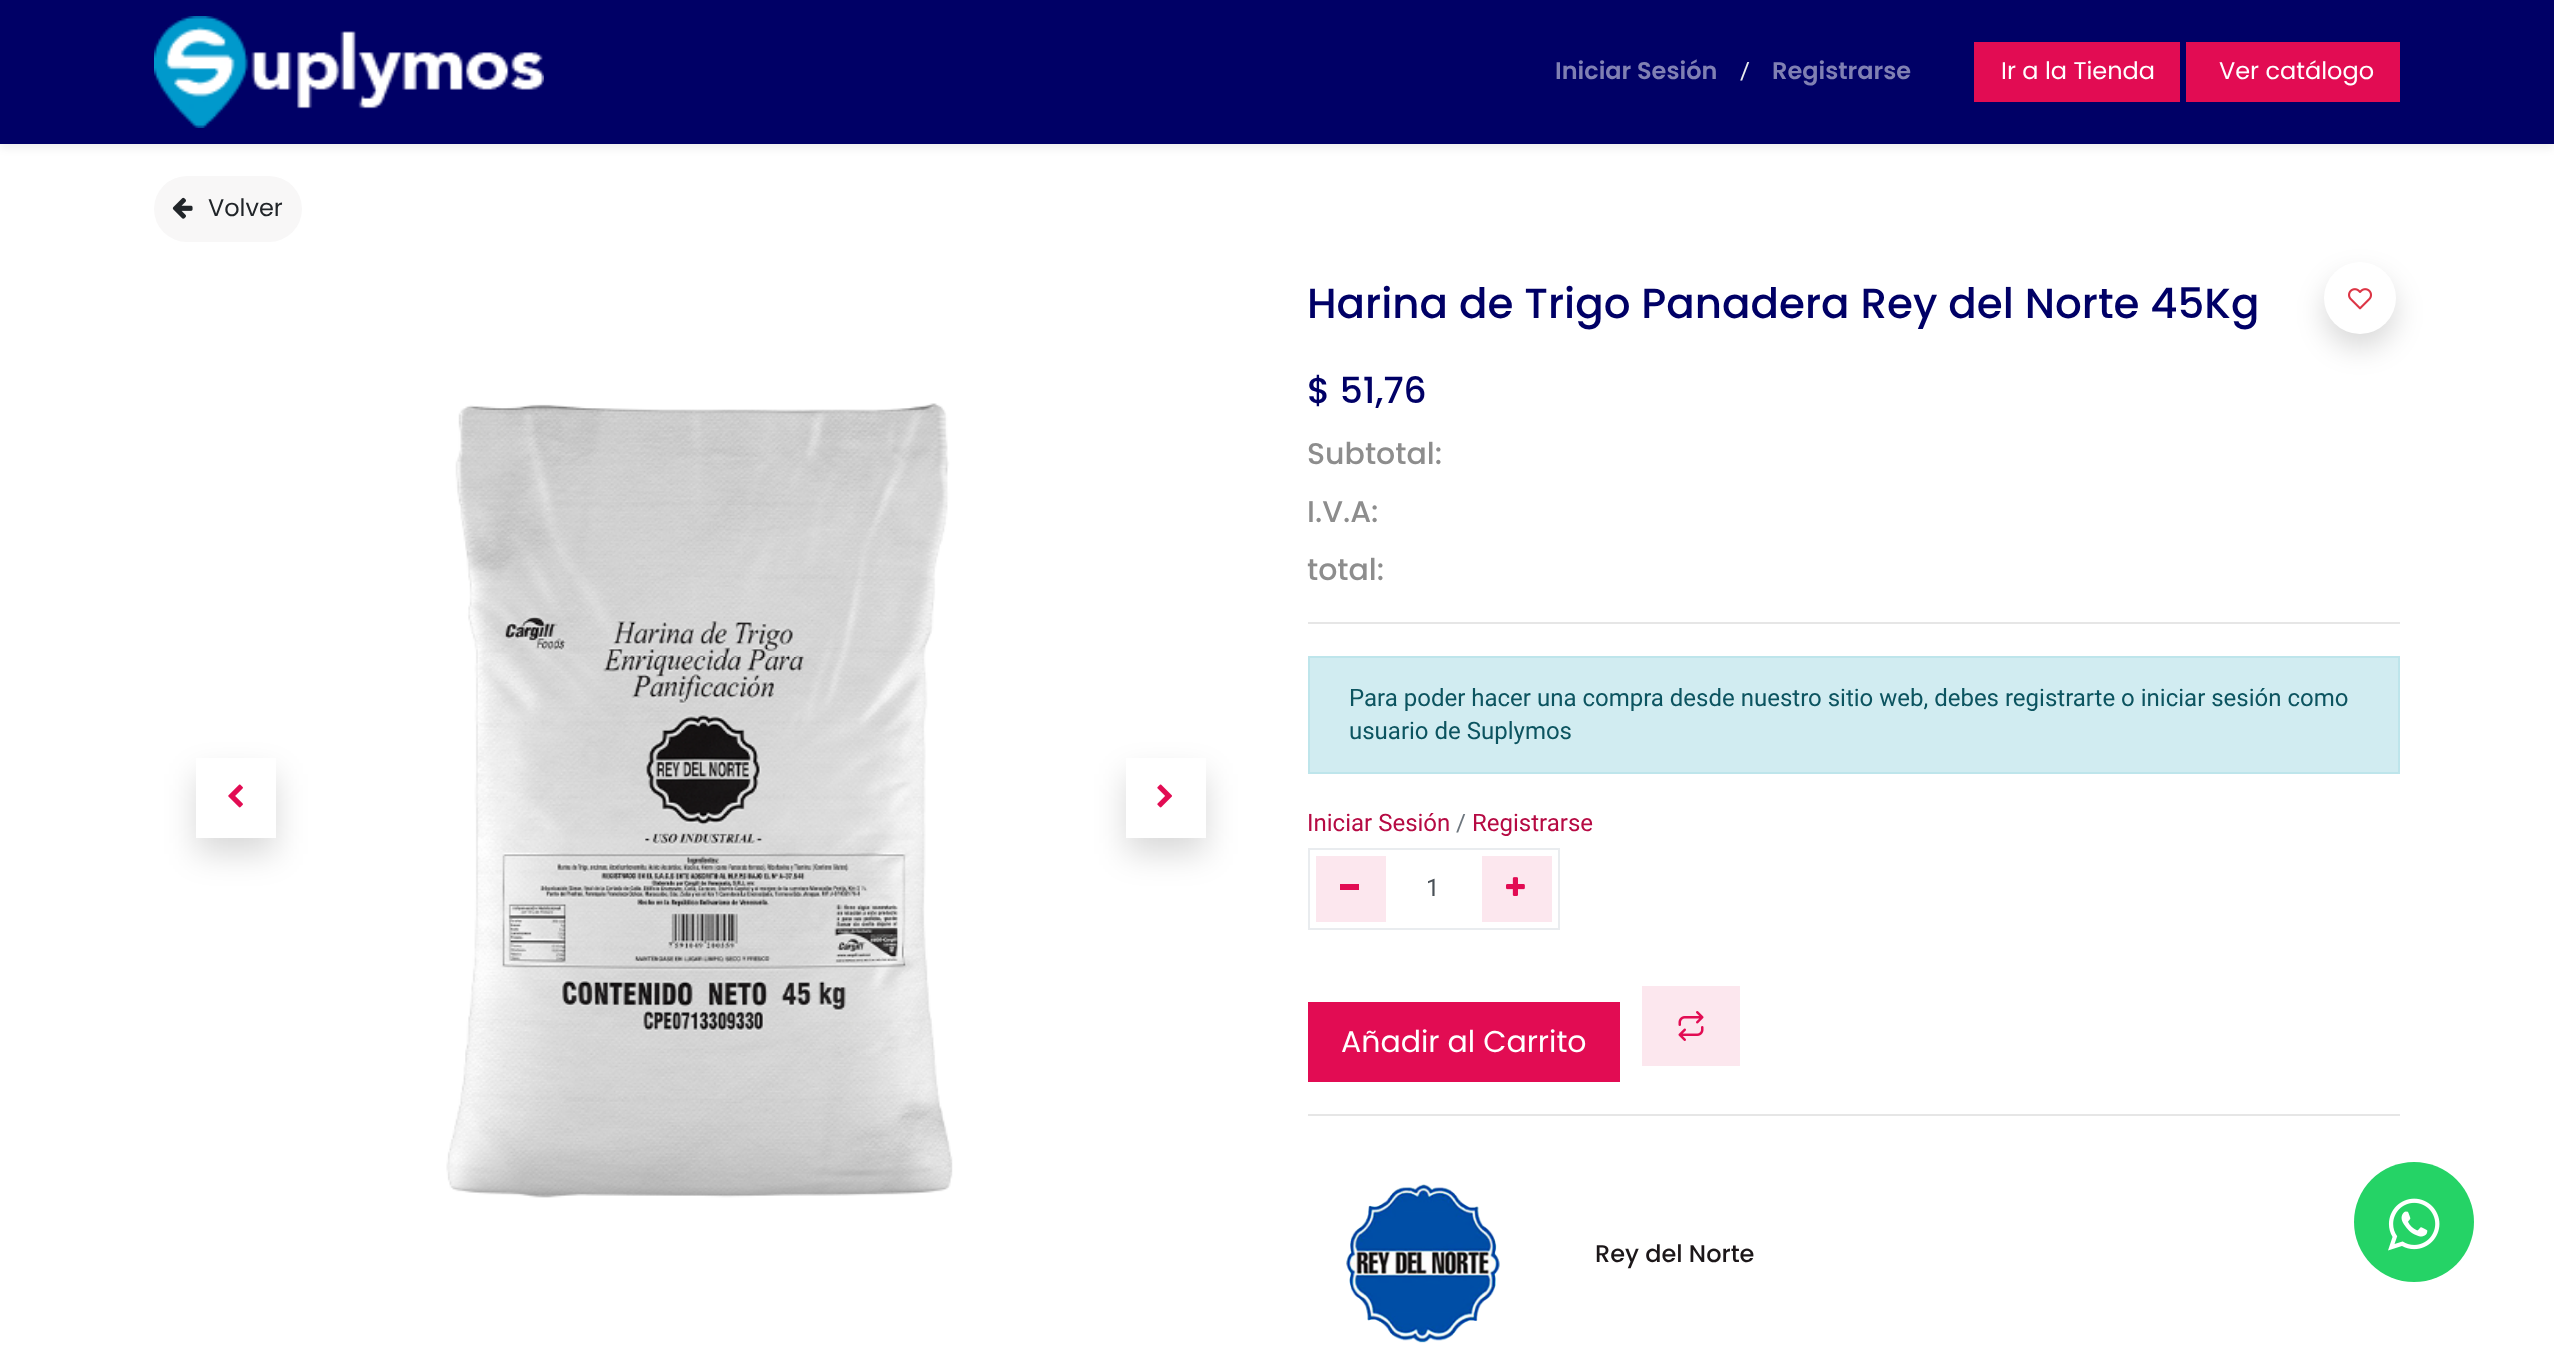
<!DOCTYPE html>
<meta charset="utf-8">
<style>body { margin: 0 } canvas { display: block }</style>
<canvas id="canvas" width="2554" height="1361"></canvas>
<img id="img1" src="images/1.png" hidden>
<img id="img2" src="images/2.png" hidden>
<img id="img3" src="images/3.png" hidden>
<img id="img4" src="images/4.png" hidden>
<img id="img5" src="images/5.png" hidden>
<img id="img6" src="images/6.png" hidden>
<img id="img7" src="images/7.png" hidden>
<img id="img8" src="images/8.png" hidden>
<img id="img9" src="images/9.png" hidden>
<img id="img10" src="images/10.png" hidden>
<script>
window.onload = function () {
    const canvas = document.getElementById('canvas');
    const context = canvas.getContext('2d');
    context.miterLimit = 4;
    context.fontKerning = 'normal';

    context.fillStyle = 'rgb(255, 255, 255)';
    context.fillRect(0, 0, 2554, 1361);
    context.fillStyle = 'rgba(0, 0, 0, 0.07)';
    context.filter = 'blur(4px)';
    context.beginPath();
    context.rect(0, 4, 2554, 144);
    context.fill();
    context.filter = 'none';
    context.fillStyle = 'rgb(0, 0, 102)';
    context.fillRect(0, 0, 2554, 144);
    context.drawImage(document.getElementById('img1'), 154, 16, 390, 112);
    context.fillStyle = 'rgb(226, 12, 83)';
    context.fillRect(1974, 42, 206, 60);
    context.fillRect(2186, 42, 214, 60);
    context.fillStyle = 'rgb(248, 247, 247)';
    context.beginPath();
    context.roundRect(154, 176, 148, 66, 33);
    context.fill();
    context.drawImage(document.getElementById('img2'), 172, 197, 21, 22);
    context.save();
    context.beginPath();
    context.moveTo(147, 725);
    context.lineTo(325, 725);
    context.lineTo(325, 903);
    context.lineTo(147, 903);
    context.closePath();
    context.moveTo(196, 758);
    context.lineTo(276, 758);
    context.lineTo(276, 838);
    context.lineTo(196, 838);
    context.closePath();
    context.clip('evenodd');
    context.fillStyle = 'rgba(0, 0, 0, 0.15)';
    context.filter = 'blur(16px)';
    context.beginPath();
    context.rect(196, 774, 80, 80);
    context.fill();
    context.filter = 'none';
    context.restore();
    context.drawImage(document.getElementById('img3'), 228, 784, 15, 24);
    context.drawImage(document.getElementById('img4'), 446, 403, 507, 795);
    context.save();
    context.beginPath();
    context.moveTo(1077, 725);
    context.lineTo(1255, 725);
    context.lineTo(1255, 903);
    context.lineTo(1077, 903);
    context.closePath();
    context.moveTo(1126, 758);
    context.lineTo(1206, 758);
    context.lineTo(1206, 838);
    context.lineTo(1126, 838);
    context.closePath();
    context.clip('evenodd');
    context.fillStyle = 'rgba(0, 0, 0, 0.15)';
    context.filter = 'blur(16px)';
    context.beginPath();
    context.rect(1126, 774, 80, 80);
    context.fill();
    context.filter = 'none';
    context.restore();
    context.drawImage(document.getElementById('img5'), 1157, 784, 15, 24);
    context.fillStyle = 'rgb(230, 230, 230)';
    context.fillRect(1308, 622, 1092, 2);
    context.fillStyle = 'rgb(209, 236, 241)';
    context.beginPath();
    context.rect(1309, 657, 1090, 116);
    context.fill();
    context.strokeStyle = 'rgb(190, 229, 235)';
    context.lineWidth = 2;
    context.stroke();
    context.strokeStyle = 'rgb(233, 236, 239)';
    context.strokeRect(1309, 849, 250, 80);
    context.fillStyle = 'rgb(252, 231, 238)';
    context.fillRect(1316, 856, 70, 66);
    context.fillStyle = 'rgb(226, 12, 83)';
    context.fillRect(1340, 884, 19, 6);
    context.fillStyle = 'rgb(252, 231, 238)';
    context.fillRect(1482, 856, 70, 66);
    context.drawImage(document.getElementById('img6'), 1506, 877, 19, 19);
    context.fillStyle = 'rgba(0, 0, 0, 0.15)';
    context.filter = 'blur(14.5px)';
    context.beginPath();
    context.roundRect(2324, 276, 72, 72, 36);
    context.fill();
    context.filter = 'none';
    context.fillStyle = 'rgb(255, 255, 255)';
    context.beginPath();
    context.arc(2360, 298, 36, 0, 2 * Math.PI);
    context.fill();
    context.drawImage(document.getElementById('img7'), 2348, 288, 24, 22);
    context.fillStyle = 'rgb(226, 12, 83)';
    context.fillRect(1308, 1002, 312, 80);
    context.fillStyle = 'rgb(252, 231, 238)';
    context.fillRect(1642, 986, 98, 80);
    context.drawImage(document.getElementById('img8'), 1678, 1011, 26, 30);
    context.fillStyle = 'rgb(230, 230, 230)';
    context.fillRect(1308, 1114, 1092, 2);
    context.drawImage(document.getElementById('img9'), 1346, 1184, 154, 159);
    context.fillStyle = 'rgb(37, 211, 102)';
    context.beginPath();
    context.arc(2414, 1222, 60, 0, 2 * Math.PI);
    context.fill();
    context.drawImage(document.getElementById('img10'), 2388, 1198, 52, 53);
    context.font = '600 24px Poppins';
    context.fillStyle = 'rgb(128, 128, 179)';
    context.fillText('Iniciar Sesión', 1555, 79);
    context.font = '24px Roboto';
    context.fillStyle = 'rgb(233, 236, 239)';
    context.fillText('/', 1740, 79);
    context.font = '600 24px Poppins';
    context.fillStyle = 'rgb(128, 128, 179)';
    context.fillText('Registrarse', 1772, 79);
    context.font = '24px Poppins';
    context.fillStyle = 'rgb(255, 255, 255)';
    context.fillText('Ir a la Tienda', 2001, 79);
    context.fillText('Ver catálogo', 2219, 79);
    context.fillStyle = 'rgb(33, 37, 41)';
    context.fillText('Volver', 208, 216);
    context.font = '500 42px Poppins';
    context.fillStyle = 'rgb(0, 0, 102)';
    context.fillText('Harina de Trigo Panadera Rey del Norte 45Kg', 1307, 318);
    context.font = '500 36px Poppins';
    context.fillText('$ 51,76', 1307, 403);
    context.font = '500 30px Poppins';
    context.fillStyle = 'rgb(141, 141, 141)';
    context.fillText('Subtotal:', 1307, 464);
    context.fillText('I.V.A:', 1307, 522);
    context.fillText('total:', 1307, 580);
    context.font = '24px Roboto';
    context.fillStyle = 'rgb(12, 84, 96)';
    context.fillText('Para poder hacer una compra desde nuestro sitio web, debes registrarte o iniciar sesión como', 1349, 706);
    context.fillText('usuario de Suplymos', 1349, 739);
    context.fillStyle = 'rgb(182, 10, 67)';
    context.fillText('Iniciar Sesión', 1307, 831);
    context.fillStyle = 'rgb(108, 117, 125)';
    context.fillText('/', 1456, 831);
    context.fillStyle = 'rgb(182, 10, 67)';
    context.fillText('Registrarse', 1472, 831);
    context.fillStyle = 'rgb(73, 80, 87)';
    context.fillText('1', 1426, 896);
    context.font = '30px Poppins';
    context.fillStyle = 'rgb(255, 255, 255)';
    context.fillText('Añadir al Carrito', 1341, 1052);
    context.font = '500 24px Poppins';
    context.fillStyle = 'rgb(28, 23, 25)';
    context.fillText('Rey del Norte', 1595, 1262);
};
</script>
